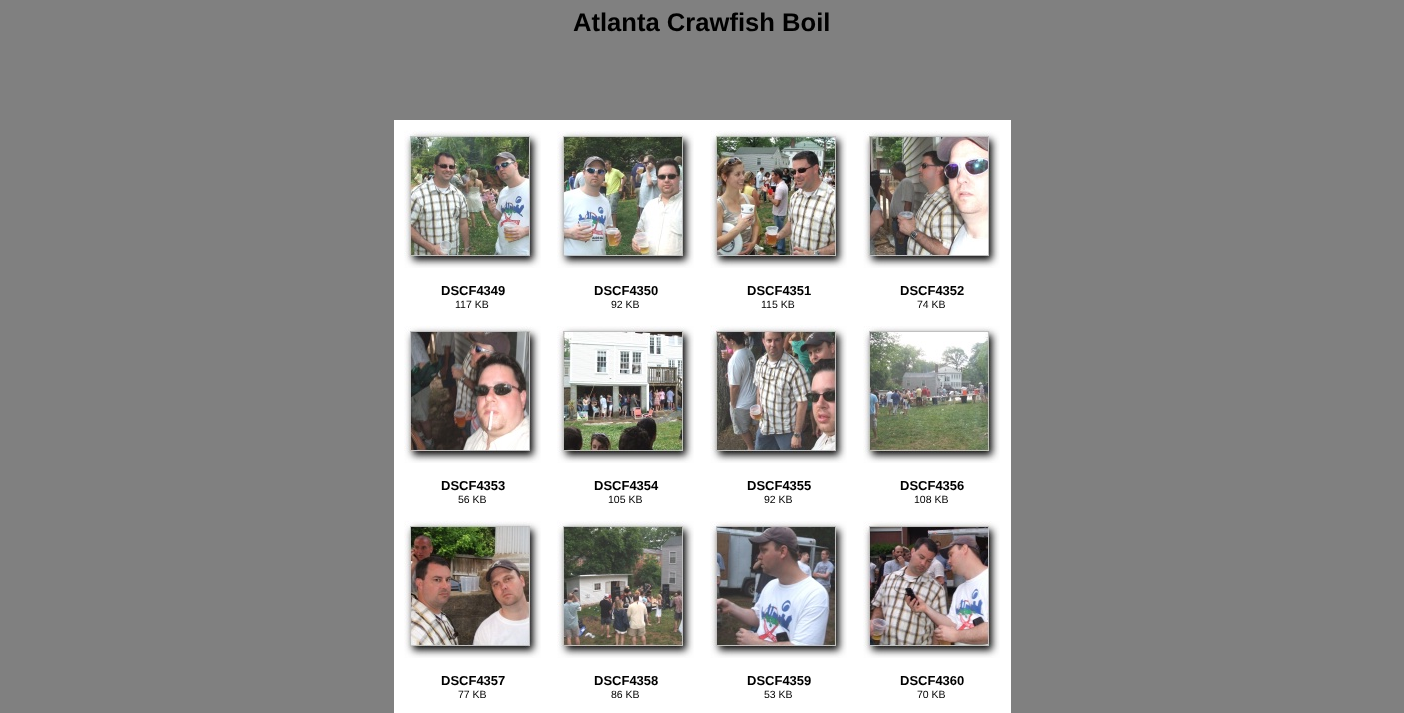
<!DOCTYPE html>
<meta charset="utf-8">
<style>body { margin: 0 } canvas { display: block }</style>
<canvas id="canvas" width="1404" height="713"></canvas>
<img id="img1" src="images/1.png" hidden>
<img id="img2" src="images/2.png" hidden>
<img id="img3" src="images/3.png" hidden>
<img id="img4" src="images/4.png" hidden>
<img id="img5" src="images/5.png" hidden>
<img id="img6" src="images/6.png" hidden>
<img id="img7" src="images/7.png" hidden>
<img id="img8" src="images/8.png" hidden>
<img id="img9" src="images/9.png" hidden>
<img id="img10" src="images/10.png" hidden>
<img id="img11" src="images/11.png" hidden>
<img id="img12" src="images/12.png" hidden>
<script>
window.onload = function () {
    const canvas = document.getElementById('canvas');
    const context = canvas.getContext('2d');
    context.miterLimit = 4;
    context.fontKerning = 'normal';

    context.fillStyle = 'rgb(128, 128, 128)';
    context.fillRect(0, 0, 1404, 713);
    context.fillStyle = 'rgb(255, 255, 255)';
    context.fillRect(394, 120, 617, 593);
    context.drawImage(document.getElementById('img1'), 404, 130, 137, 138);
    context.drawImage(document.getElementById('img2'), 557, 130, 137, 138);
    context.drawImage(document.getElementById('img3'), 710, 130, 137, 138);
    context.drawImage(document.getElementById('img4'), 863, 130, 137, 138);
    context.drawImage(document.getElementById('img5'), 404, 325, 137, 138);
    context.drawImage(document.getElementById('img6'), 557, 326, 137, 137);
    context.drawImage(document.getElementById('img7'), 710, 325, 137, 138);
    context.drawImage(document.getElementById('img8'), 863, 326, 137, 137);
    context.drawImage(document.getElementById('img9'), 404, 520, 137, 138);
    context.drawImage(document.getElementById('img10'), 557, 520, 137, 138);
    context.drawImage(document.getElementById('img11'), 710, 521, 137, 137);
    context.drawImage(document.getElementById('img12'), 863, 520, 137, 138);
    context.font = 'bold 25.6px Liberation Sans';
    context.fillStyle = 'rgb(0, 0, 0)';
    context.fillText('Atlanta Crawfish Boil', 573, 31);
    context.font = 'bold 13px Liberation Sans';
    context.fillText('DSCF4349', 441, 295);
    context.font = '10.5px Liberation Sans';
    context.fillText('117 KB', 455, 308);
    context.font = 'bold 13px Liberation Sans';
    context.fillText('DSCF4350', 594, 295);
    context.font = '10.5px Liberation Sans';
    context.fillText('92 KB', 611, 308);
    context.font = 'bold 13px Liberation Sans';
    context.fillText('DSCF4351', 747, 295);
    context.font = '10.5px Liberation Sans';
    context.fillText('115 KB', 761, 308);
    context.font = 'bold 13px Liberation Sans';
    context.fillText('DSCF4352', 900, 295);
    context.font = '10.5px Liberation Sans';
    context.fillText('74 KB', 917, 308);
    context.font = 'bold 13px Liberation Sans';
    context.fillText('DSCF4353', 441, 490);
    context.font = '10.5px Liberation Sans';
    context.fillText('56 KB', 458, 503);
    context.font = 'bold 13px Liberation Sans';
    context.fillText('DSCF4354', 594, 490);
    context.font = '10.5px Liberation Sans';
    context.fillText('105 KB', 608, 503);
    context.font = 'bold 13px Liberation Sans';
    context.fillText('DSCF4355', 747, 490);
    context.font = '10.5px Liberation Sans';
    context.fillText('92 KB', 764, 503);
    context.font = 'bold 13px Liberation Sans';
    context.fillText('DSCF4356', 900, 490);
    context.font = '10.5px Liberation Sans';
    context.fillText('108 KB', 914, 503);
    context.font = 'bold 13px Liberation Sans';
    context.fillText('DSCF4357', 441, 685);
    context.font = '10.5px Liberation Sans';
    context.fillText('77 KB', 458, 698);
    context.font = 'bold 13px Liberation Sans';
    context.fillText('DSCF4358', 594, 685);
    context.font = '10.5px Liberation Sans';
    context.fillText('86 KB', 611, 698);
    context.font = 'bold 13px Liberation Sans';
    context.fillText('DSCF4359', 747, 685);
    context.font = '10.5px Liberation Sans';
    context.fillText('53 KB', 764, 698);
    context.font = 'bold 13px Liberation Sans';
    context.fillText('DSCF4360', 900, 685);
    context.font = '10.5px Liberation Sans';
    context.fillText('70 KB', 917, 698);
};
</script>
